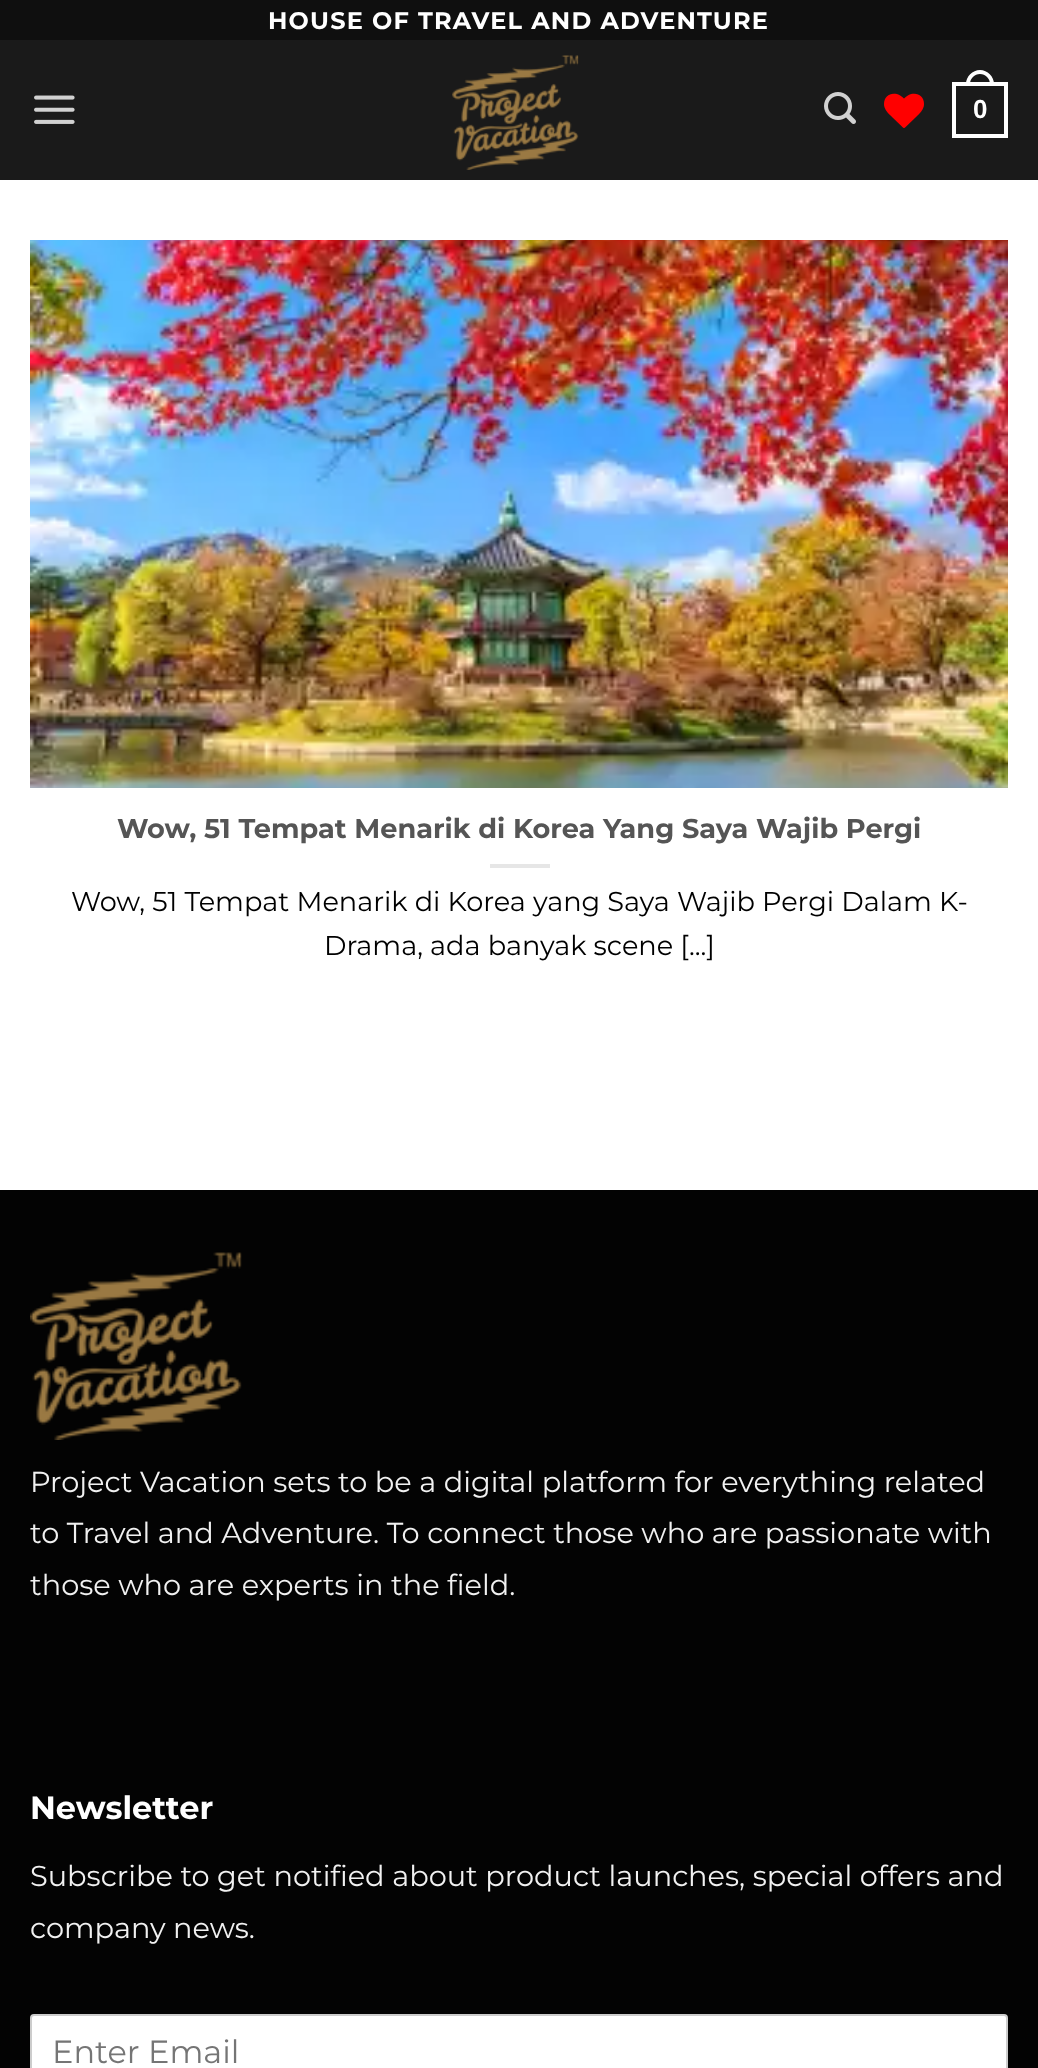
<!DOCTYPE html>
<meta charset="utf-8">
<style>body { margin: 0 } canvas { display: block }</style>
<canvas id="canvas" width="1038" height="2068"></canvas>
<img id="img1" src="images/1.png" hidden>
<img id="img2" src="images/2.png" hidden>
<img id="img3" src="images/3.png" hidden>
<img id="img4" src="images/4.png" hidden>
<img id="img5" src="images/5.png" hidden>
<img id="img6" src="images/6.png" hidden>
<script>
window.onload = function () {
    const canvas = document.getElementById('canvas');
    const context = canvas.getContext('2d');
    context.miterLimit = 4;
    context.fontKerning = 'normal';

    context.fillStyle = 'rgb(255, 255, 255)';
    context.fillRect(0, 0, 1038, 2068);
    context.fillStyle = 'rgb(15, 15, 15)';
    context.fillRect(0, 0, 1038, 40);
    context.fillStyle = 'rgb(26, 26, 26)';
    context.fillRect(0, 40, 1038, 140);
    context.drawImage(document.getElementById('img1'), 34, 95, 41, 29);
    context.drawImage(document.getElementById('img2'), 452, 55, 127, 115);
    context.drawImage(document.getElementById('img3'), 824, 92, 32, 32);
    context.drawImage(document.getElementById('img4'), 884, 93, 40, 35);
    context.strokeStyle = 'rgb(255, 255, 255)';
    context.lineWidth = 4;
    context.strokeRect(954, 84, 52, 52);
    context.fillStyle = 'rgb(255, 255, 255)';
    context.beginPath();
    context.moveTo(980, 70);
    context.bezierCurveTo(987.5, 70, 994, 76.5, 994, 84);
    context.lineTo(994, 86);
    context.lineTo(966, 86);
    context.lineTo(966, 84);
    context.bezierCurveTo(966, 76.5, 972.5, 70, 980, 70);
    context.closePath();
    context.moveTo(980, 74);
    context.bezierCurveTo(985.5, 74, 990, 78.5, 990, 84);
    context.lineTo(990, 86);
    context.lineTo(970, 86);
    context.lineTo(970, 84);
    context.bezierCurveTo(970, 78.5, 974.5, 74, 980, 74);
    context.closePath();
    context.fill('evenodd');
    context.drawImage(document.getElementById('img5'), 30, 240, 978, 548);
    context.fillStyle = 'rgb(230, 230, 230)';
    context.fillRect(490, 864, 60, 4);
    context.fillStyle = 'rgb(3, 3, 3)';
    context.fillRect(0, 1190, 1038, 878);
    context.drawImage(document.getElementById('img6'), 30, 1252, 212, 188);
    context.fillStyle = 'rgb(255, 255, 255)';
    context.beginPath();
    context.roundRect(31, 2015, 976, 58, 3);
    context.fill();
    context.strokeStyle = 'rgb(204, 204, 204)';
    context.lineWidth = 2;
    context.stroke();
    context.letterSpacing = '1.2px';
    context.font = 'bold 24px Montserrat';
    context.fillText('HOUSE OF TRAVEL AND ADVENTURE', 268, 29);
    context.letterSpacing = '0px';
    context.font = 'bold 26px Liberation Sans';
    context.fillText('0', 973, 118);
    context.font = 'bold 27.2px Montserrat';
    context.fillStyle = 'rgb(85, 85, 85)';
    context.fillText('Wow, 51 Tempat Menarik di Korea Yang Saya Wajib Pergi', 117, 838);
    context.font = '27.2px Montserrat';
    context.fillStyle = 'rgb(0, 0, 0)';
    context.fillText('Wow, 51 Tempat Menarik di Korea yang Saya Wajib Pergi Dalam K-', 71, 911);
    context.fillText('Drama, ada banyak scene [...]', 324, 955);
    context.font = '28.8px Montserrat';
    context.fillStyle = 'rgb(241, 241, 241)';
    context.fillText('Project Vacation sets to be a digital platform for everything related', 30, 1492);
    context.fillText('to Travel and Adventure. To connect those who are passionate with', 30, 1543);
    context.fillText('those who are experts in the field.', 30, 1595);
    context.font = 'bold 32px Montserrat';
    context.fillStyle = 'rgb(255, 255, 255)';
    context.fillText('Newsletter', 30, 1819);
    context.font = '28.8px Montserrat';
    context.fillStyle = 'rgb(241, 241, 241)';
    context.fillText('Subscribe to get notified about product launches, special offers and', 30, 1886);
    context.fillText('company news.', 30, 1938);
    context.font = '32px Montserrat';
    context.fillStyle = 'rgb(117, 117, 117)';
    context.fillText('Enter Email', 52, 2063);
};
</script>
